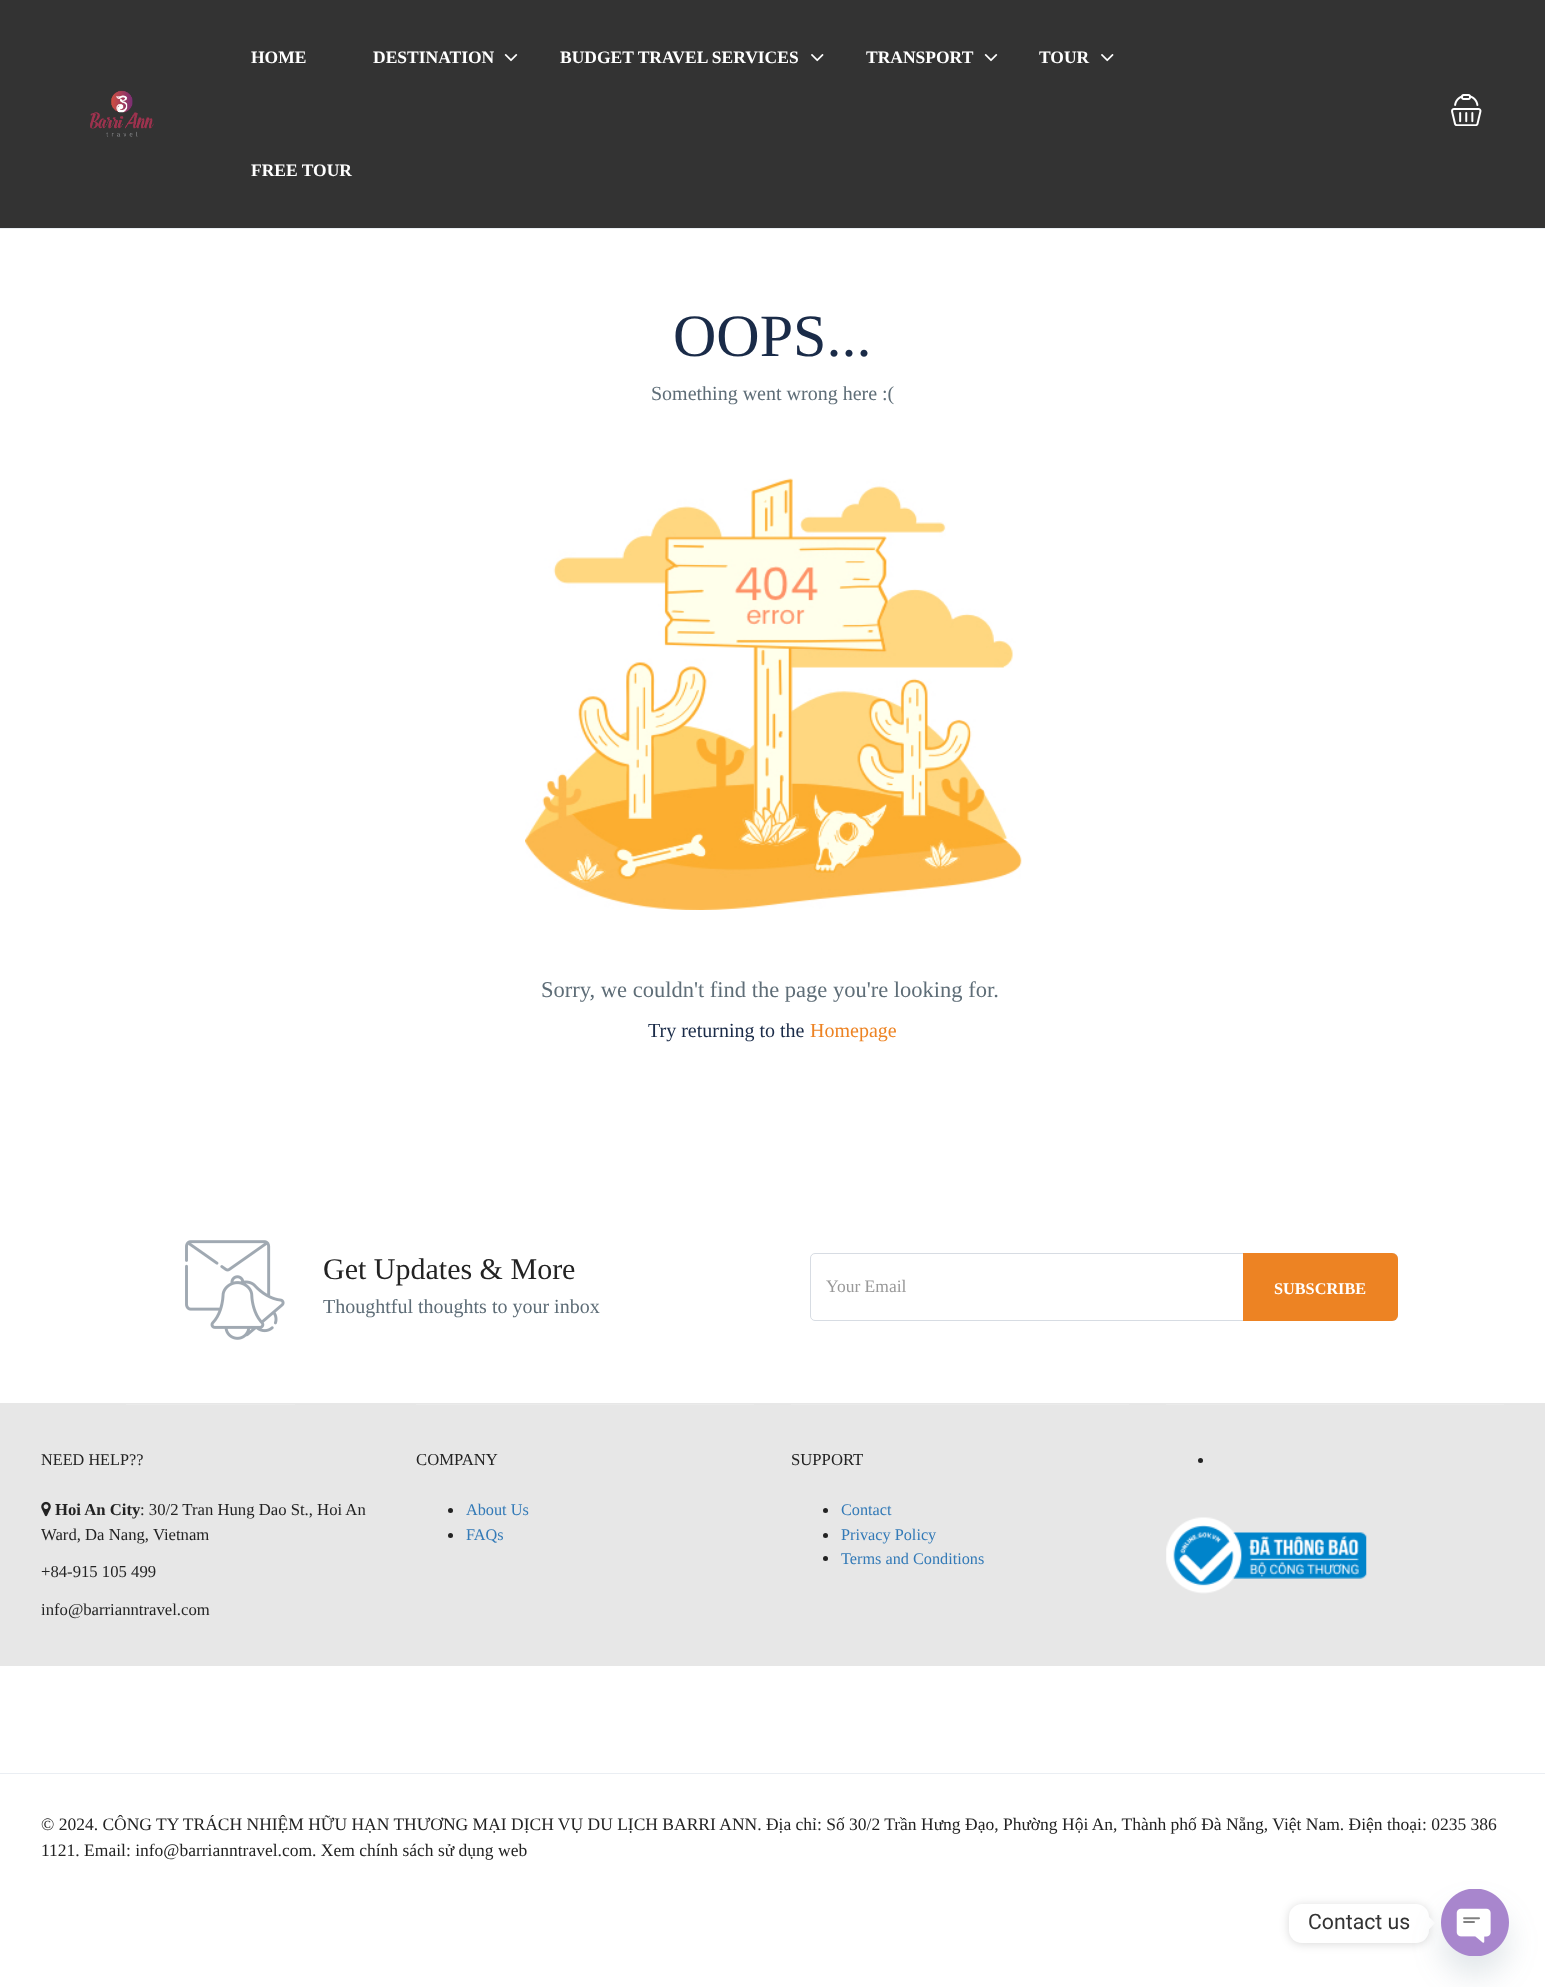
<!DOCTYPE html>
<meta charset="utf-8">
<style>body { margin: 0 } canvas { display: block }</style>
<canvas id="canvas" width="1545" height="1987"></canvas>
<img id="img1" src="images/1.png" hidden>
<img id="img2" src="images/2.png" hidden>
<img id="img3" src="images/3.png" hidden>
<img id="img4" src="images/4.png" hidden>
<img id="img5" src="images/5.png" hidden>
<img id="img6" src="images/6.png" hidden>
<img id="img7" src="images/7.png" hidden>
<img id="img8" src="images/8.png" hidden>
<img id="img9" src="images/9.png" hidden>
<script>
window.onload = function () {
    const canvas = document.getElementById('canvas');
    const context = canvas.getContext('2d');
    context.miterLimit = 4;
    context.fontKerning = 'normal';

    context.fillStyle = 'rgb(255, 255, 255)';
    context.fillRect(0, 0, 1545, 1987);
    context.fillStyle = 'rgb(51, 51, 51)';
    context.fillRect(0, 0, 1545, 228);
    context.fillStyle = 'rgb(234, 238, 243)';
    context.fillRect(0, 228, 1545, 1);
    context.drawImage(document.getElementById('img1'), 90, 90, 64, 47);
    context.drawImage(document.getElementById('img2'), 504, 54, 14, 8);
    context.drawImage(document.getElementById('img3'), 811, 54, 13, 8);
    context.drawImage(document.getElementById('img2'), 984, 54, 14, 8);
    context.drawImage(document.getElementById('img3'), 1101, 54, 13, 8);
    context.drawImage(document.getElementById('img4'), 1451, 94, 31, 32);
    context.drawImage(document.getElementById('img5'), 525, 478, 497, 432);
    context.fillRect(0, 1773, 1545, 1);
    context.drawImage(document.getElementById('img6'), 185, 1240, 100, 100);
    context.beginPath();
    context.roundRect(810.5, 1253.5, 587, 67, 4.5);
    context.strokeStyle = 'rgb(215, 220, 227)';
    context.stroke();
    context.fillStyle = 'rgb(237, 131, 35)';
    context.beginPath();
    context.roundRect(1243, 1253, 155, 68, [0, 6, 6, 0]);
    context.fill();
    context.fillStyle = 'rgb(231, 231, 231)';
    context.fillRect(0, 1403, 1545, 263);
    context.fillStyle = 'rgb(235, 235, 235)';
    context.fillRect(126, 1404, 169, 1);
    context.drawImage(document.getElementById('img7'), 41, 1501, 10, 16);
    context.fillRect(416, 1404, 338, 1);
    context.fillStyle = 'rgb(35, 35, 35)';
    context.beginPath();
    context.arc(450.5, 1510.5, 2.5, 0, 2 * Math.PI);
    context.fill();
    context.beginPath();
    context.arc(450.5, 1535.5, 2.5, 0, 2 * Math.PI);
    context.fill();
    context.fillStyle = 'rgb(235, 235, 235)';
    context.fillRect(791, 1404, 338, 1);
    context.fillStyle = 'rgb(35, 35, 35)';
    context.beginPath();
    context.arc(825.5, 1510.5, 2.5, 0, 2 * Math.PI);
    context.fill();
    context.beginPath();
    context.arc(825.5, 1535.5, 2.5, 0, 2 * Math.PI);
    context.fill();
    context.beginPath();
    context.arc(825.5, 1558.5, 2.5, 0, 2 * Math.PI);
    context.fill();
    context.fillStyle = 'rgb(235, 235, 235)';
    context.fillRect(1166, 1404, 338, 1);
    context.fillStyle = 'rgb(35, 35, 35)';
    context.beginPath();
    context.arc(1200.5, 1460.5, 2.5, 0, 2 * Math.PI);
    context.fill();
    context.drawImage(document.getElementById('img8'), 1166, 1517, 201, 77);
    context.fillStyle = 'rgba(0, 0, 0, 0.15)';
    context.filter = 'blur(5px)';
    context.beginPath();
    context.roundRect(1289, 1905, 140, 39, 13);
    context.fill();
    context.filter = 'none';
    context.fillStyle = 'rgb(255, 255, 255)';
    context.beginPath();
    context.roundRect(1289, 1904, 140, 39, 13);
    context.fill();
    context.beginPath();
    context.moveTo(1429, 1929.5);
    context.lineTo(1429, 1917);
    context.lineTo(1435, 1923);
    context.closePath();
    context.fill();
    context.fillStyle = 'rgba(73, 104, 126, 0.16)';
    context.filter = 'blur(15px)';
    context.beginPath();
    context.roundRect(1441, 1909, 68, 67, 33.5);
    context.fill();
    context.filter = 'none';
    context.drawImage(document.getElementById('img9'), 1441, 1889, 68, 67);
    context.font = 'bold 17.5px Liberation Serif';
    context.fillStyle = 'rgb(255, 255, 255)';
    context.fillText('HOME', 251, 63);
    context.fillText('DESTINATION', 373, 63);
    context.fillText('BUDGET TRAVEL SERVICES', 560, 63);
    context.fillText('TRANSPORT', 866, 63);
    context.fillText('TOUR', 1039, 63);
    context.fillText('FREE TOUR', 251, 176);
    context.font = '60px Liberation Serif';
    context.fillStyle = 'rgb(26, 43, 72)';
    context.fillText('OOPS...', 673, 356);
    context.font = '20px Liberation Serif';
    context.fillStyle = 'rgb(94, 109, 119)';
    context.fillText('Something went wrong here :(', 651, 400);
    context.font = '22.5px Liberation Serif';
    context.fillText('Sorry, we couldn\'t find the page you\'re looking for.', 541, 997);
    context.font = '20px Liberation Serif';
    context.fillStyle = 'rgb(26, 43, 72)';
    context.fillText('Try returning to the', 648, 1037);
    context.fillStyle = 'rgb(237, 131, 35)';
    context.fillText('Homepage', 810, 1037);
    context.font = '30px Liberation Serif';
    context.fillStyle = 'rgb(35, 35, 35)';
    context.fillText('Get Updates & More', 323, 1279);
    context.save();
    context.beginPath();
    context.rect(323, 1253, 450, 100);
    context.clip();
    context.font = '20px Liberation Serif';
    context.fillStyle = 'rgb(94, 109, 119)';
    context.fillText('Thoughtful thoughts to your inbox', 323, 1313);
    context.restore();
    context.font = '17.5px Liberation Serif';
    context.fillStyle = 'rgb(153, 153, 153)';
    context.fillText('Your Email', 826, 1292);
    context.font = 'bold 16.25px Liberation Serif';
    context.fillStyle = 'rgb(255, 255, 255)';
    context.fillText('SUBSCRIBE', 1274, 1294);
    context.font = '16.25px Liberation Serif';
    context.fillStyle = 'rgb(35, 35, 35)';
    context.fillText('NEED HELP??', 41, 1465);
    context.font = 'bold 16.7px Liberation Serif';
    context.fillText('Hoi An City', 55, 1515);
    context.font = '16.7px Liberation Serif';
    context.fillText(': 30/2 Tran Hung Dao St., Hoi An', 140, 1515);
    context.fillText('Ward, Da Nang, Vietnam', 41, 1540);
    context.fillText('+84-915 105 499', 41, 1577);
    context.fillText('info@barrianntravel.com', 41, 1615);
    context.fillText('COMPANY', 416, 1465);
    context.font = '16.25px Liberation Serif';
    context.fillStyle = 'rgb(51, 122, 183)';
    context.fillText('About Us', 466, 1515);
    context.fillText('FAQs', 466, 1540);
    context.font = '16.7px Liberation Serif';
    context.fillStyle = 'rgb(35, 35, 35)';
    context.fillText('SUPPORT', 791, 1465);
    context.font = '16.25px Liberation Serif';
    context.fillStyle = 'rgb(51, 122, 183)';
    context.fillText('Contact', 841, 1515);
    context.fillText('Privacy Policy', 841, 1540);
    context.fillText('Terms and Conditions', 841, 1564);
    context.font = '17.5px Liberation Serif';
    context.fillStyle = 'rgb(35, 35, 35)';
    context.fillText('© 2024. CÔNG TY TRÁCH NHIỆM HỮU HẠN THƯƠNG MẠI DỊCH VỤ DU LỊCH BARRI ANN. Địa chỉ: Số 30/2 Trần Hưng Đạo, Phường Hội An, Thành phố Đà Nẵng, Việt Nam. Điện thoại: 0235 386', 41, 1830);
    context.fillText('1121. Email: info@barrianntravel.com. Xem chính sách sử dụng web', 41, 1856);
    context.font = '21.25px Roboto';
    context.fillStyle = 'rgb(51, 51, 51)';
    context.fillText('Contact us', 1308, 1929);
};
</script>
